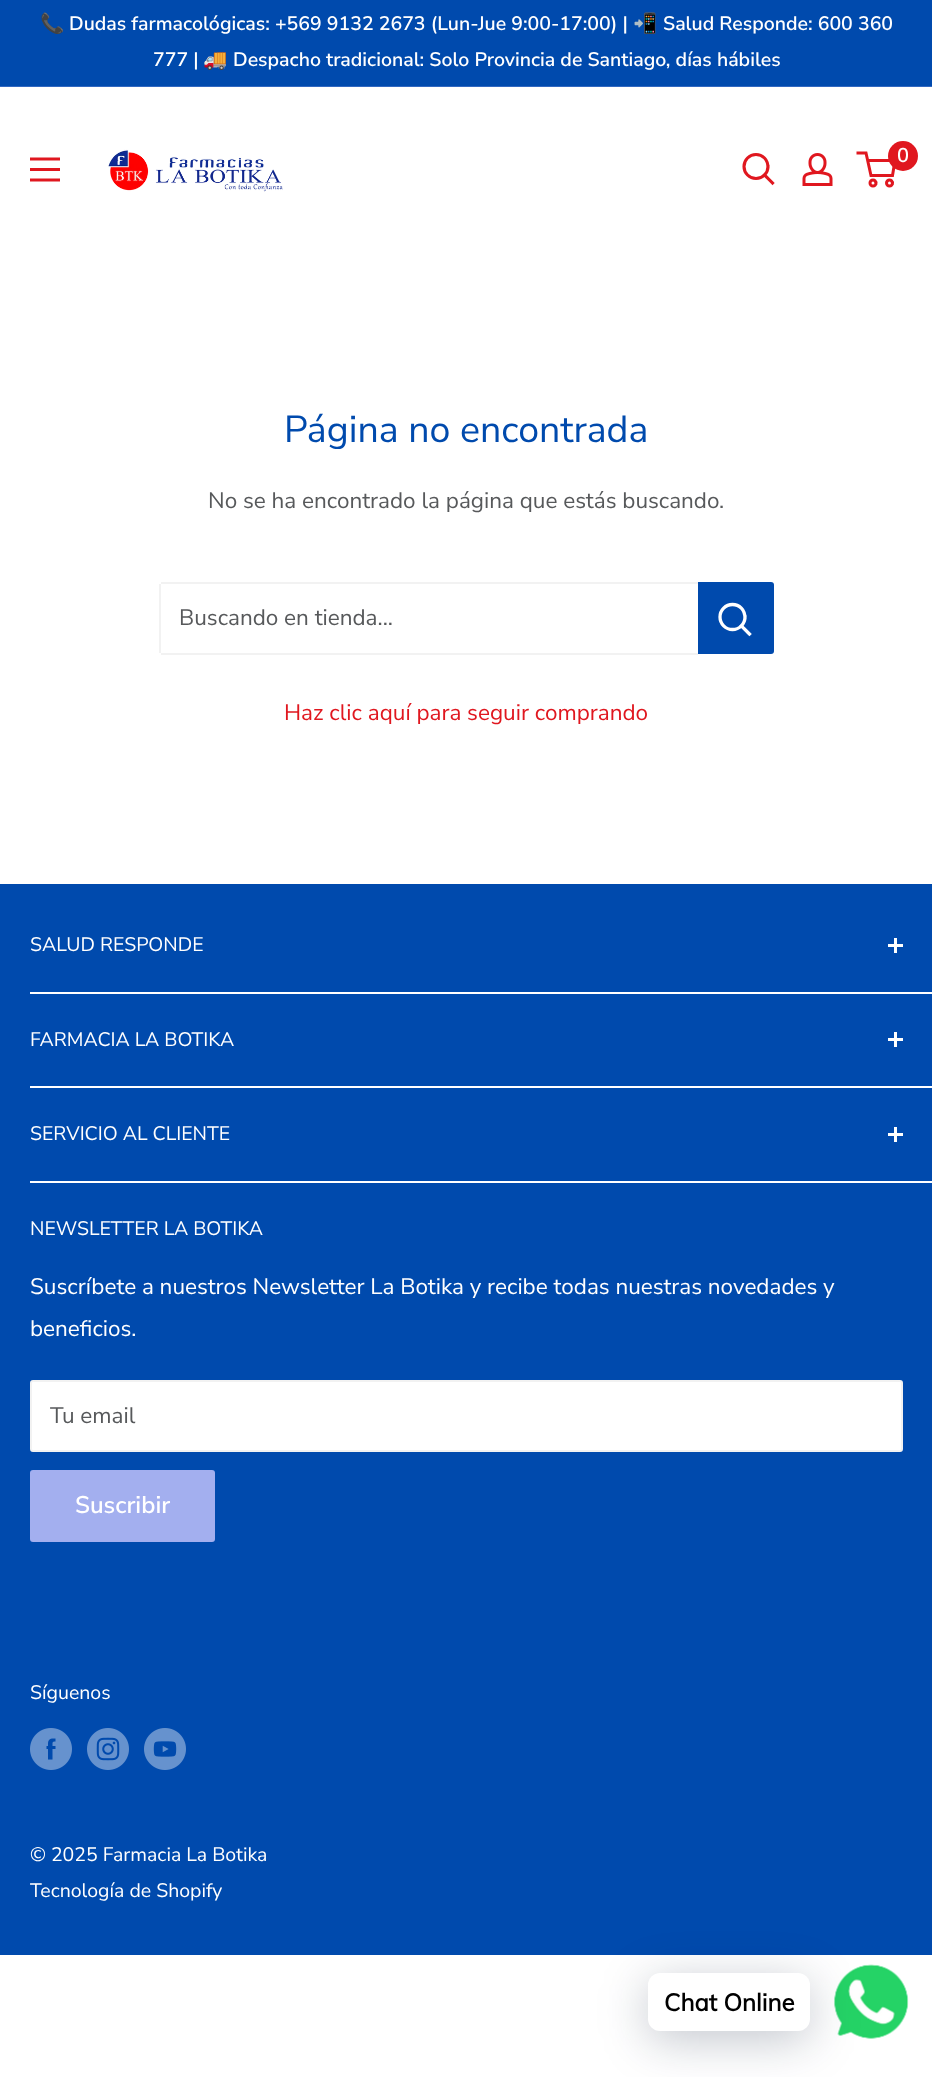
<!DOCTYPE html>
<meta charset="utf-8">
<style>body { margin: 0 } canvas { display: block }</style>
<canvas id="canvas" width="932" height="2077"></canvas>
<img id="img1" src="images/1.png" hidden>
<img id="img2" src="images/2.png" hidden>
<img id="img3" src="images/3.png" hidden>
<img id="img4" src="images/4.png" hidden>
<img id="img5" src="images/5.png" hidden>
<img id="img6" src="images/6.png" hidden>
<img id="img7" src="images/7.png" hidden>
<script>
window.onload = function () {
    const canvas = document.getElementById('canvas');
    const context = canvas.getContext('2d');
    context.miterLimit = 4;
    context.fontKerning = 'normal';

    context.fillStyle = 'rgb(255, 255, 255)';
    context.fillRect(0, 0, 932, 2077);
    context.fillStyle = 'rgb(0, 74, 173)';
    context.fillRect(0, 0, 932, 86);
    context.fillStyle = 'rgb(49, 104, 193)';
    context.fillRect(0, 86, 932, 1);
    context.drawImage(document.getElementById('img1'), 30, 157, 30, 25);
    context.drawImage(document.getElementById('img2'), 108, 149, 175, 43);
    context.beginPath();
    context.moveTo(772.5, 183);
    context.lineTo(764.5, 175);
    context.strokeStyle = 'rgb(224, 23, 31)';
    context.lineWidth = 3.1;
    context.lineCap = 'square';
    context.stroke();
    context.beginPath();
    context.arc(756, 166.5, 12, 0, 2 * Math.PI);
    context.stroke();
    context.drawImage(document.getElementById('img3'), 802, 153, 31, 33);
    context.beginPath();
    context.arc(873, 183, 3, 0, 2 * Math.PI);
    context.lineWidth = 3;
    context.stroke();
    context.beginPath();
    context.arc(889.5, 183, 3, 0, 2 * Math.PI);
    context.stroke();
    context.beginPath();
    context.moveTo(867.5, 160.5);
    context.lineTo(895, 160.5);
    context.lineTo(892.5, 175.5);
    context.lineTo(871, 175.5);
    context.lineTo(866, 153);
    context.lineTo(856.5, 153);
    context.lineCap = 'butt';
    context.stroke();
    context.fillStyle = 'rgb(224, 23, 31)';
    context.beginPath();
    context.arc(903, 156, 15, 0, 2 * Math.PI);
    context.fill();
    context.fillStyle = 'rgb(242, 242, 242)';
    context.fillRect(161, 582, 537, 2);
    context.fillRect(161, 653, 537, 2);
    context.fillRect(159, 584, 2, 69);
    context.fillStyle = 'rgb(0, 74, 173)';
    context.beginPath();
    context.roundRect(698, 582, 76, 72, [0, 3, 3, 0]);
    context.fill();
    context.beginPath();
    context.moveTo(749.5, 634);
    context.lineTo(741.5, 626);
    context.strokeStyle = 'rgb(255, 255, 255)';
    context.lineWidth = 3.3;
    context.lineCap = 'square';
    context.stroke();
    context.beginPath();
    context.arc(732.5, 617, 12.5, 0, 2 * Math.PI);
    context.stroke();
    context.fillRect(0, 884, 932, 1071);
    context.fillStyle = 'rgb(255, 255, 255)';
    context.fillRect(30, 992, 902, 2);
    context.fillRect(894, 938, 3, 15);
    context.fillRect(888, 944, 15, 3);
    context.fillRect(30, 1086, 902, 2);
    context.fillRect(894, 1032, 3, 15);
    context.fillRect(888, 1038, 15, 3);
    context.fillRect(30, 1181, 902, 2);
    context.fillRect(894, 1127, 3, 15);
    context.fillRect(888, 1133, 15, 3);
    context.beginPath();
    context.roundRect(31, 1381, 871, 70, 2);
    context.fill();
    context.strokeStyle = 'rgb(242, 242, 242)';
    context.lineWidth = 2;
    context.stroke();
    context.fillStyle = 'rgb(163, 175, 239)';
    context.beginPath();
    context.roundRect(30, 1470, 185, 72, 3);
    context.fill();
    context.drawImage(document.getElementById('img4'), 30, 1728, 42, 42);
    context.drawImage(document.getElementById('img5'), 87, 1728, 42, 42);
    context.drawImage(document.getElementById('img6'), 144, 1728, 42, 42);
    context.drawImage(document.getElementById('img7'), 834, 1964, 75, 75);
    context.fillStyle = 'rgba(0, 18, 46, 0.24)';
    context.filter = 'blur(24px)';
    context.beginPath();
    context.roundRect(648, 1982, 162, 58, 12);
    context.fill();
    context.filter = 'none';
    context.fillStyle = 'rgb(255, 255, 255)';
    context.beginPath();
    context.roundRect(648, 1973, 162, 58, 12);
    context.fill();
    context.font = 'bold 19.5px Noto Color Emoji';
    context.fillText('📞', 40, 30);
    context.font = '600 19.5px Nunito Sans';
    context.fillText('Dudas farmacológicas: +569 9132 2673 (Lun-Jue 9:00-17:00) |', 69, 30);
    context.font = 'bold 19.5px Noto Color Emoji';
    context.fillText('📲', 633, 30);
    context.font = '600 19.5px Nunito Sans';
    context.fillText('Salud Responde: 600 360', 663, 30);
    context.fillText('777 |', 153, 66);
    context.font = 'bold 19.5px Noto Color Emoji';
    context.fillText('🚚', 203, 66);
    context.font = '600 19.5px Nunito Sans';
    context.fillText('Despacho tradicional: Solo Provincia de Santiago, días hábiles', 233, 66);
    context.font = '600 20px Nunito Sans';
    context.fillText('0', 897, 162);
    context.font = '37.5px Nunito Sans';
    context.fillStyle = 'rgb(0, 74, 173)';
    context.fillText('Página no encontrada', 284, 442);
    context.font = '22.5px Nunito Sans';
    context.fillStyle = 'rgb(87, 89, 91)';
    context.fillText('No se ha encontrado la página que estás buscando.', 208, 508);
    context.fillText('Buscando en tienda...', 179, 625);
    context.fillStyle = 'rgb(224, 23, 31)';
    context.fillText('Haz clic aquí para seguir comprando', 284, 720);
    context.font = '19.5px Nunito Sans';
    context.fillStyle = 'rgb(255, 255, 255)';
    context.fillText('SALUD RESPONDE', 30, 951);
    context.fillText('FARMACIA LA BOTIKA', 30, 1046);
    context.fillText('SERVICIO AL CLIENTE', 30, 1140);
    context.fillText('NEWSLETTER LA BOTIKA', 30, 1235);
    context.font = '22.5px Nunito Sans';
    context.fillText('Suscríbete a nuestros Newsletter La Botika y recibe todas nuestras novedades y', 30, 1294);
    context.fillText('beneficios.', 30, 1336);
    context.fillStyle = 'rgb(87, 89, 91)';
    context.fillText('Tu email', 50, 1423);
    context.font = '600 24px Nunito Sans';
    context.fillStyle = 'rgb(255, 255, 255)';
    context.fillText('Suscribir', 75, 1513);
    context.font = '19.5px Nunito Sans';
    context.fillText('Síguenos', 30, 1699);
    context.fillText('© 2025 Farmacia La Botika', 30, 1861);
    context.fillText('Tecnología de Shopify', 30, 1897);
    context.font = 'bold 24px Muli';
    context.fillStyle = 'rgb(0, 0, 0)';
    context.fillText('Chat Online', 664, 2011);
};
</script>
